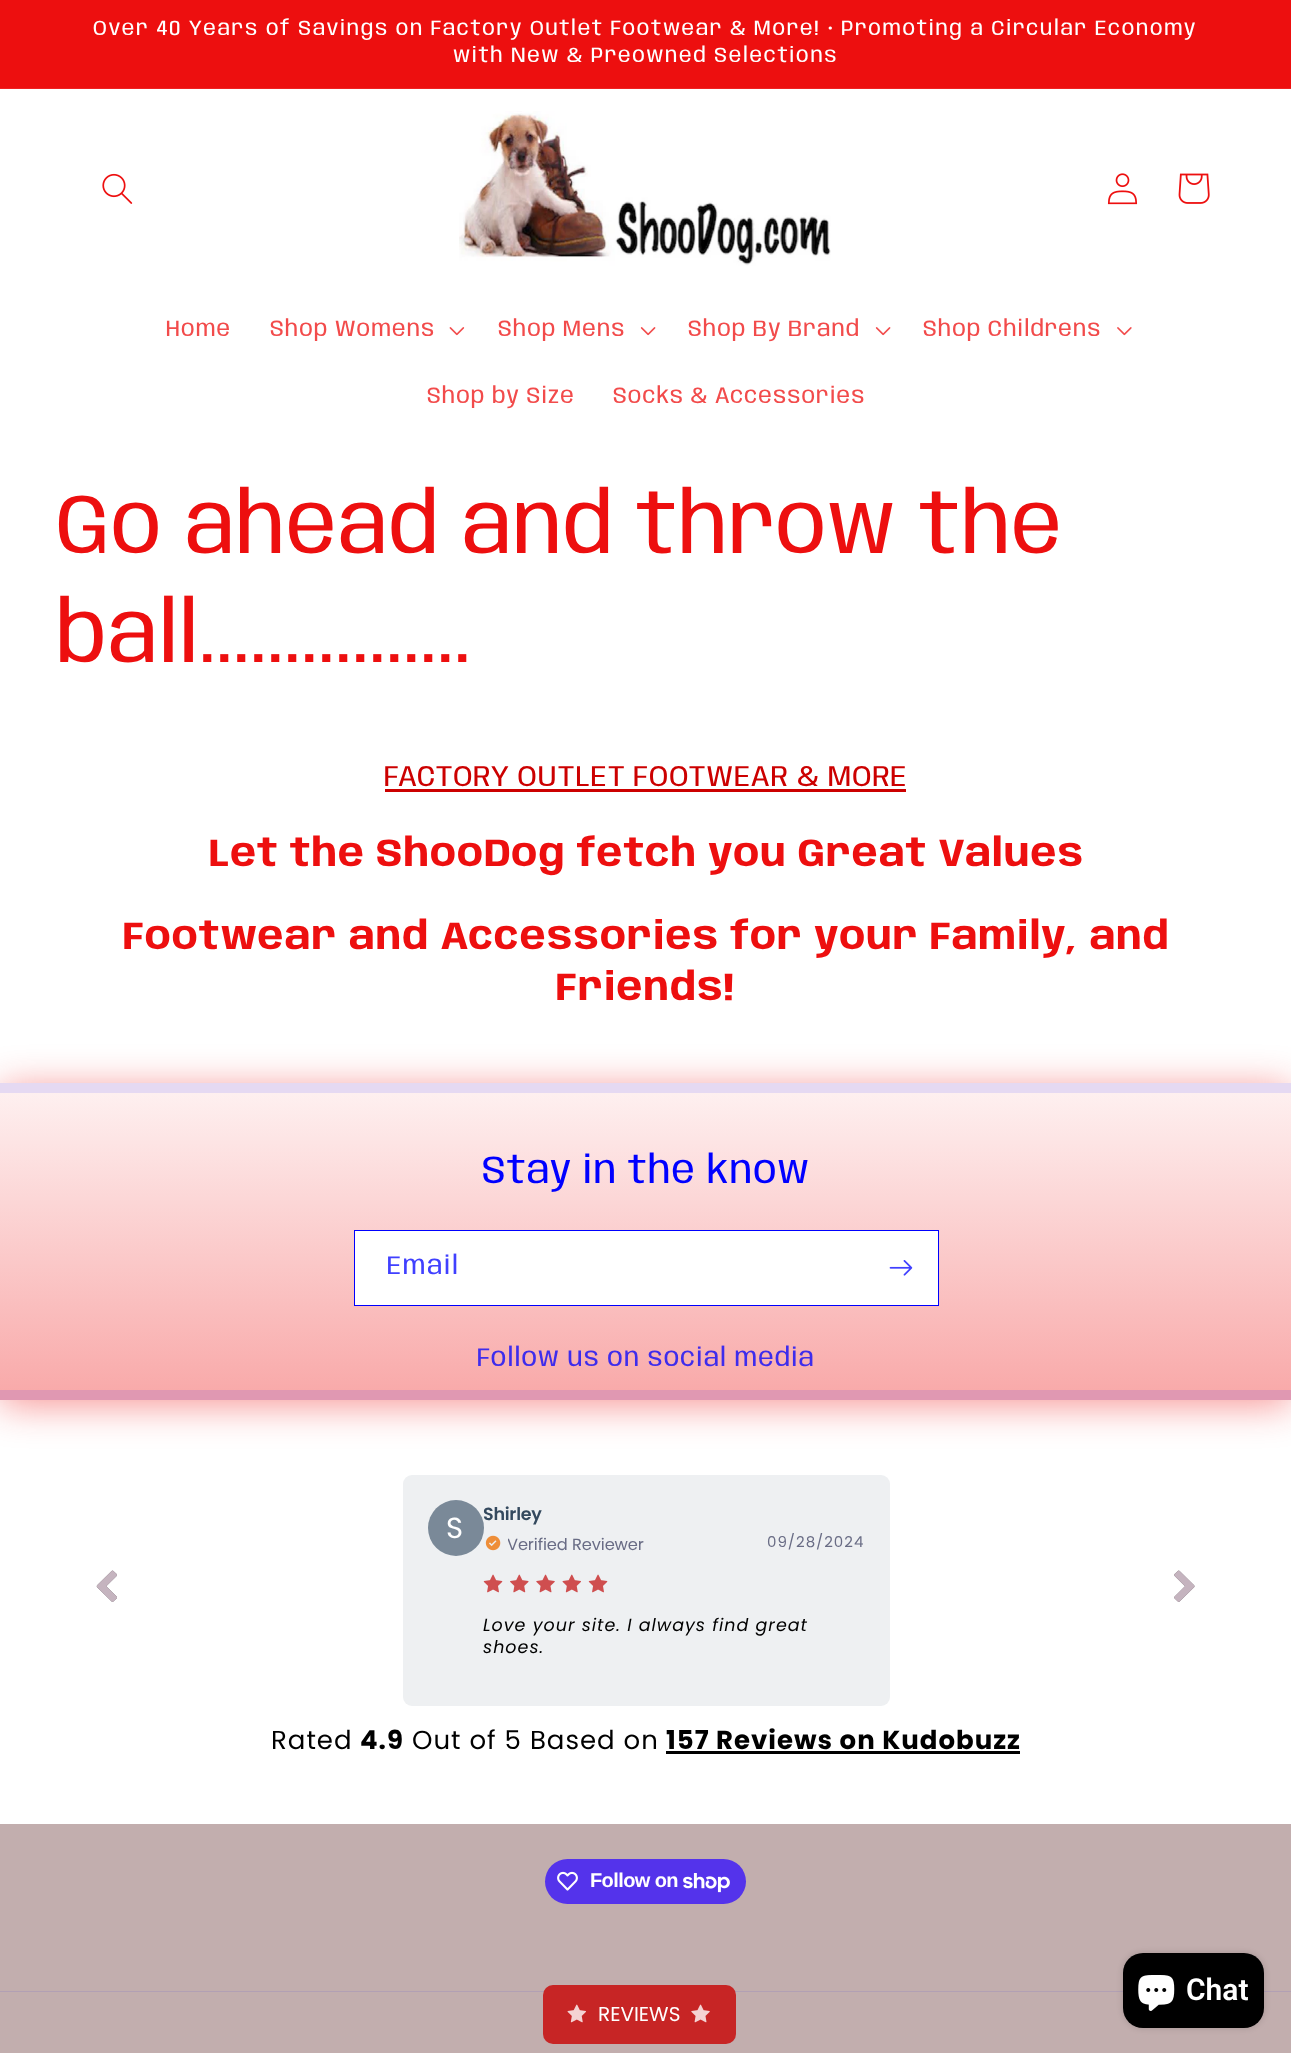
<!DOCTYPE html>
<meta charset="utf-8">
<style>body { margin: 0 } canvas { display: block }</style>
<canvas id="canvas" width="1291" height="2053"></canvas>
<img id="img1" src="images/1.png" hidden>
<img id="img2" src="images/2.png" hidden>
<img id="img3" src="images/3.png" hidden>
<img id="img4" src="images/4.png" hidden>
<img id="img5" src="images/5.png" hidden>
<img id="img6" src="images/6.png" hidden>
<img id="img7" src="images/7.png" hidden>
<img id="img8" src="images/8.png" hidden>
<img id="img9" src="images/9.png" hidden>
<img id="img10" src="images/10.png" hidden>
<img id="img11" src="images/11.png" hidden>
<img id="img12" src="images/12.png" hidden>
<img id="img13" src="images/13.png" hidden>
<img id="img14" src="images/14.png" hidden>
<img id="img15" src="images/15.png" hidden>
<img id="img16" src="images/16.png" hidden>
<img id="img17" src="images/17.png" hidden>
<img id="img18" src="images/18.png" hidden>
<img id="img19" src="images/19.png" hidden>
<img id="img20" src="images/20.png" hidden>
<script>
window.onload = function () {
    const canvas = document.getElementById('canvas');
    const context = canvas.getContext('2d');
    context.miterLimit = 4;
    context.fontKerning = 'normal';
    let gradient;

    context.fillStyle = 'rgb(255, 255, 255)';
    context.fillRect(0, 0, 1291, 2053);
    context.fillStyle = 'rgb(237, 15, 15)';
    context.fillRect(0, 0, 1291, 88);
    context.fillStyle = 'rgb(238, 34, 34)';
    context.fillRect(0, 88, 1291, 1);
    context.drawImage(document.getElementById('img1'), 102, 173, 31, 31);
    context.drawImage(document.getElementById('img2'), 459, 111, 372, 155);
    context.drawImage(document.getElementById('img3'), 1107, 173, 31, 32);
    context.drawImage(document.getElementById('img4'), 1178, 173, 32, 31);
    context.drawImage(document.getElementById('img5'), 449, 327, 16, 9);
    context.drawImage(document.getElementById('img6'), 640, 327, 16, 9);
    context.drawImage(document.getElementById('img6'), 875, 327, 16, 9);
    context.drawImage(document.getElementById('img7'), 1117, 327, 15, 9);
    context.fillStyle = 'rgb(204, 0, 0)';
    context.fillRect(385, 789, 521, 3);
    gradient = context.createLinearGradient(646, 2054, 646, 0);
    gradient.addColorStop(0, 'rgb(237, 15, 15)');
    gradient.addColorStop(0.5, 'rgb(255, 255, 255)');
    gradient.addColorStop(1, 'rgb(97, 148, 182)');
    context.fillStyle = gradient;
    context.fillRect(0, 1093, 1291, 297);
    context.fillStyle = 'rgb(229, 217, 242)';
    context.fillRect(0, 1083, 1291, 10);
    context.fillStyle = 'rgb(224, 152, 178)';
    context.fillRect(0, 1390, 1291, 10);
    context.save();
    context.beginPath();
    context.moveTo(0, 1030);
    context.lineTo(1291, 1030);
    context.lineTo(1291, 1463);
    context.lineTo(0, 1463);
    context.closePath();
    context.moveTo(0, 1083);
    context.lineTo(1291, 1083);
    context.lineTo(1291, 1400);
    context.lineTo(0, 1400);
    context.closePath();
    context.clip('evenodd');
    context.fillStyle = 'rgba(237, 15, 15, 0.45)';
    context.filter = 'blur(19px)';
    context.beginPath();
    context.rect(0, 1088, 1291, 317);
    context.fill();
    context.filter = 'none';
    context.restore();
    context.fillStyle = 'rgb(255, 255, 255)';
    context.fillRect(355, 1231, 583, 74);
    context.strokeStyle = 'rgb(0, 0, 255)';
    context.strokeRect(354.5, 1230.5, 584, 75);
    context.drawImage(document.getElementById('img8'), 889, 1260, 24, 16);
    context.drawImage(document.getElementById('img9'), 96, 1570, 21, 32);
    context.fillStyle = 'rgb(238, 240, 242)';
    context.beginPath();
    context.roundRect(403, 1475, 487, 231, 9);
    context.fill();
    context.fillStyle = 'rgb(122, 137, 152)';
    context.beginPath();
    context.arc(456, 1528, 28, 0, 2 * Math.PI);
    context.fill();
    context.drawImage(document.getElementById('img10'), 485, 1535, 16, 16);
    context.drawImage(document.getElementById('img11'), 483, 1574, 20, 19);
    context.drawImage(document.getElementById('img12'), 510, 1574, 19, 19);
    context.drawImage(document.getElementById('img13'), 536, 1574, 19, 19);
    context.drawImage(document.getElementById('img14'), 562, 1574, 19, 19);
    context.drawImage(document.getElementById('img11'), 588, 1574, 20, 19);
    context.drawImage(document.getElementById('img15'), 1174, 1570, 21, 32);
    context.fillStyle = 'rgb(0, 0, 0)';
    context.fillRect(666, 1751, 354, 3);
    context.fillStyle = 'rgb(194, 174, 174)';
    context.fillRect(0, 1824, 1291, 229);
    context.fillStyle = 'rgb(84, 51, 235)';
    context.beginPath();
    context.roundRect(545, 1859, 201, 45, 22.5);
    context.fill();
    context.drawImage(document.getElementById('img16'), 557, 1871, 21, 20);
    context.drawImage(document.getElementById('img17'), 683, 1873, 47, 20);
    context.fillStyle = 'rgb(178, 160, 180)';
    context.fillRect(0, 1991, 1291, 1);
    context.fillStyle = 'rgba(0, 0, 0, 0.15)';
    context.filter = 'blur(3px)';
    context.beginPath();
    context.roundRect(1123, 1953, 141, 75, 20);
    context.fill();
    context.filter = 'none';
    context.fillStyle = 'rgb(0, 0, 0)';
    context.beginPath();
    context.roundRect(1123, 1953, 141, 75, 20);
    context.fill();
    context.drawImage(document.getElementById('img18'), 1138, 1975, 37, 36);
    context.fillStyle = 'rgb(199, 37, 37)';
    context.beginPath();
    context.roundRect(543, 1985, 193, 59, 10);
    context.fill();
    context.drawImage(document.getElementById('img19'), 567, 2004, 19, 19);
    context.drawImage(document.getElementById('img20'), 691, 2004, 19, 19);
    context.letterSpacing = '1.62px';
    context.font = '21.1px Anybody';
    context.fillStyle = 'rgb(255, 255, 255)';
    context.fillText('Over 40 Years of Savings on Factory Outlet Footwear & More!', 93, 35);
    context.fillText('• Promoting a Circular Economy', 828, 35);
    context.fillText('with New & Preowned Selections', 453, 62);
    context.letterSpacing = '1px';
    context.font = '22.75px Anybody';
    context.fillStyle = 'rgb(242, 75, 75)';
    context.fillText('Home', 166, 336);
    context.fillText('Shop Womens', 270, 336);
    context.fillText('Shop Mens', 498, 336);
    context.fillText('Shop By Brand', 688, 336);
    context.fillText('Shop Childrens', 923, 336);
    context.fillText('Shop by Size', 427, 403);
    context.fillText('Socks & Accessories', 613, 403);
    context.font = '84.5px Anybody';
    context.fillStyle = 'rgb(237, 15, 15)';
    context.fillText('Go ahead and throw the', 56, 553);
    context.fillText('ball................', 56, 662);
    context.font = '29.25px Anybody';
    context.fillStyle = 'rgb(204, 0, 0)';
    context.fillText('FACTORY OUTLET FOOTWEAR & MORE', 384, 786);
    context.font = 'bold 39px Anybody';
    context.fillStyle = 'rgb(237, 15, 15)';
    context.fillText('Let the ShooDog fetch you Great Values', 209, 866);
    context.fillText('Footwear and Accessories for your Family, and', 123, 949);
    context.fillText('Friends!', 556, 1000);
    context.font = '39px Anybody';
    context.fillStyle = 'rgb(0, 0, 255)';
    context.fillText('Stay in the know', 482, 1183);
    context.letterSpacing = '1.62px';
    context.font = '26px Anybody';
    context.fillStyle = 'rgb(64, 64, 255)';
    context.fillText('Email', 387, 1274);
    context.letterSpacing = '1px';
    context.fillStyle = 'rgb(62, 44, 236)';
    context.fillText('Follow us on social media', 477, 1366);
    context.font = '29px Poppins';
    context.fillStyle = 'rgb(255, 255, 255)';
    context.fillText('S', 446, 1538);
    context.letterSpacing = '-0.25px';
    context.font = '600 17.5px Poppins';
    context.fillStyle = 'rgb(52, 73, 94)';
    context.fillText('Shirley', 483, 1520);
    context.save();
    context.beginPath();
    context.rect(508, 1533, 136, 21);
    context.clip();
    context.letterSpacing = '-0.1px';
    context.font = '16.25px Poppins';
    context.fillStyle = 'rgb(105, 108, 133)';
    context.fillText('Verified Reviewer', 507, 1550);
    context.restore();
    context.letterSpacing = '1px';
    context.font = '15px Poppins';
    context.fillStyle = 'rgb(105, 108, 133)';
    context.fillText('09/28/2024', 767, 1547);
    context.font = 'italic 17.5px Poppins';
    context.fillStyle = 'rgb(0, 0, 0)';
    context.fillText('Love your site. I always find great', 483, 1631);
    context.fillText('shoes.', 483, 1653);
    context.font = '26px Poppins';
    context.fillText('Rated', 271, 1749);
    context.font = 'bold 26px Poppins';
    context.fillText('4.9', 360, 1749);
    context.font = '26px Poppins';
    context.fillText('Out of 5 Based on', 412, 1749);
    context.font = 'bold 26px Poppins';
    context.fillText('157 Reviews on Kudobuzz', 666, 1749);
    context.letterSpacing = '-0.6px';
    context.font = 'bold 20px Liberation Sans';
    context.fillStyle = 'rgb(255, 255, 255)';
    context.fillText('Follow on', 590, 1887);
    context.letterSpacing = '0px';
    context.font = '600 30px Roboto';
    context.fillText('Chat', 1186, 2000);
    context.font = '20px Poppins';
    context.fillText('REVIEWS', 598, 2021);
};
</script>
